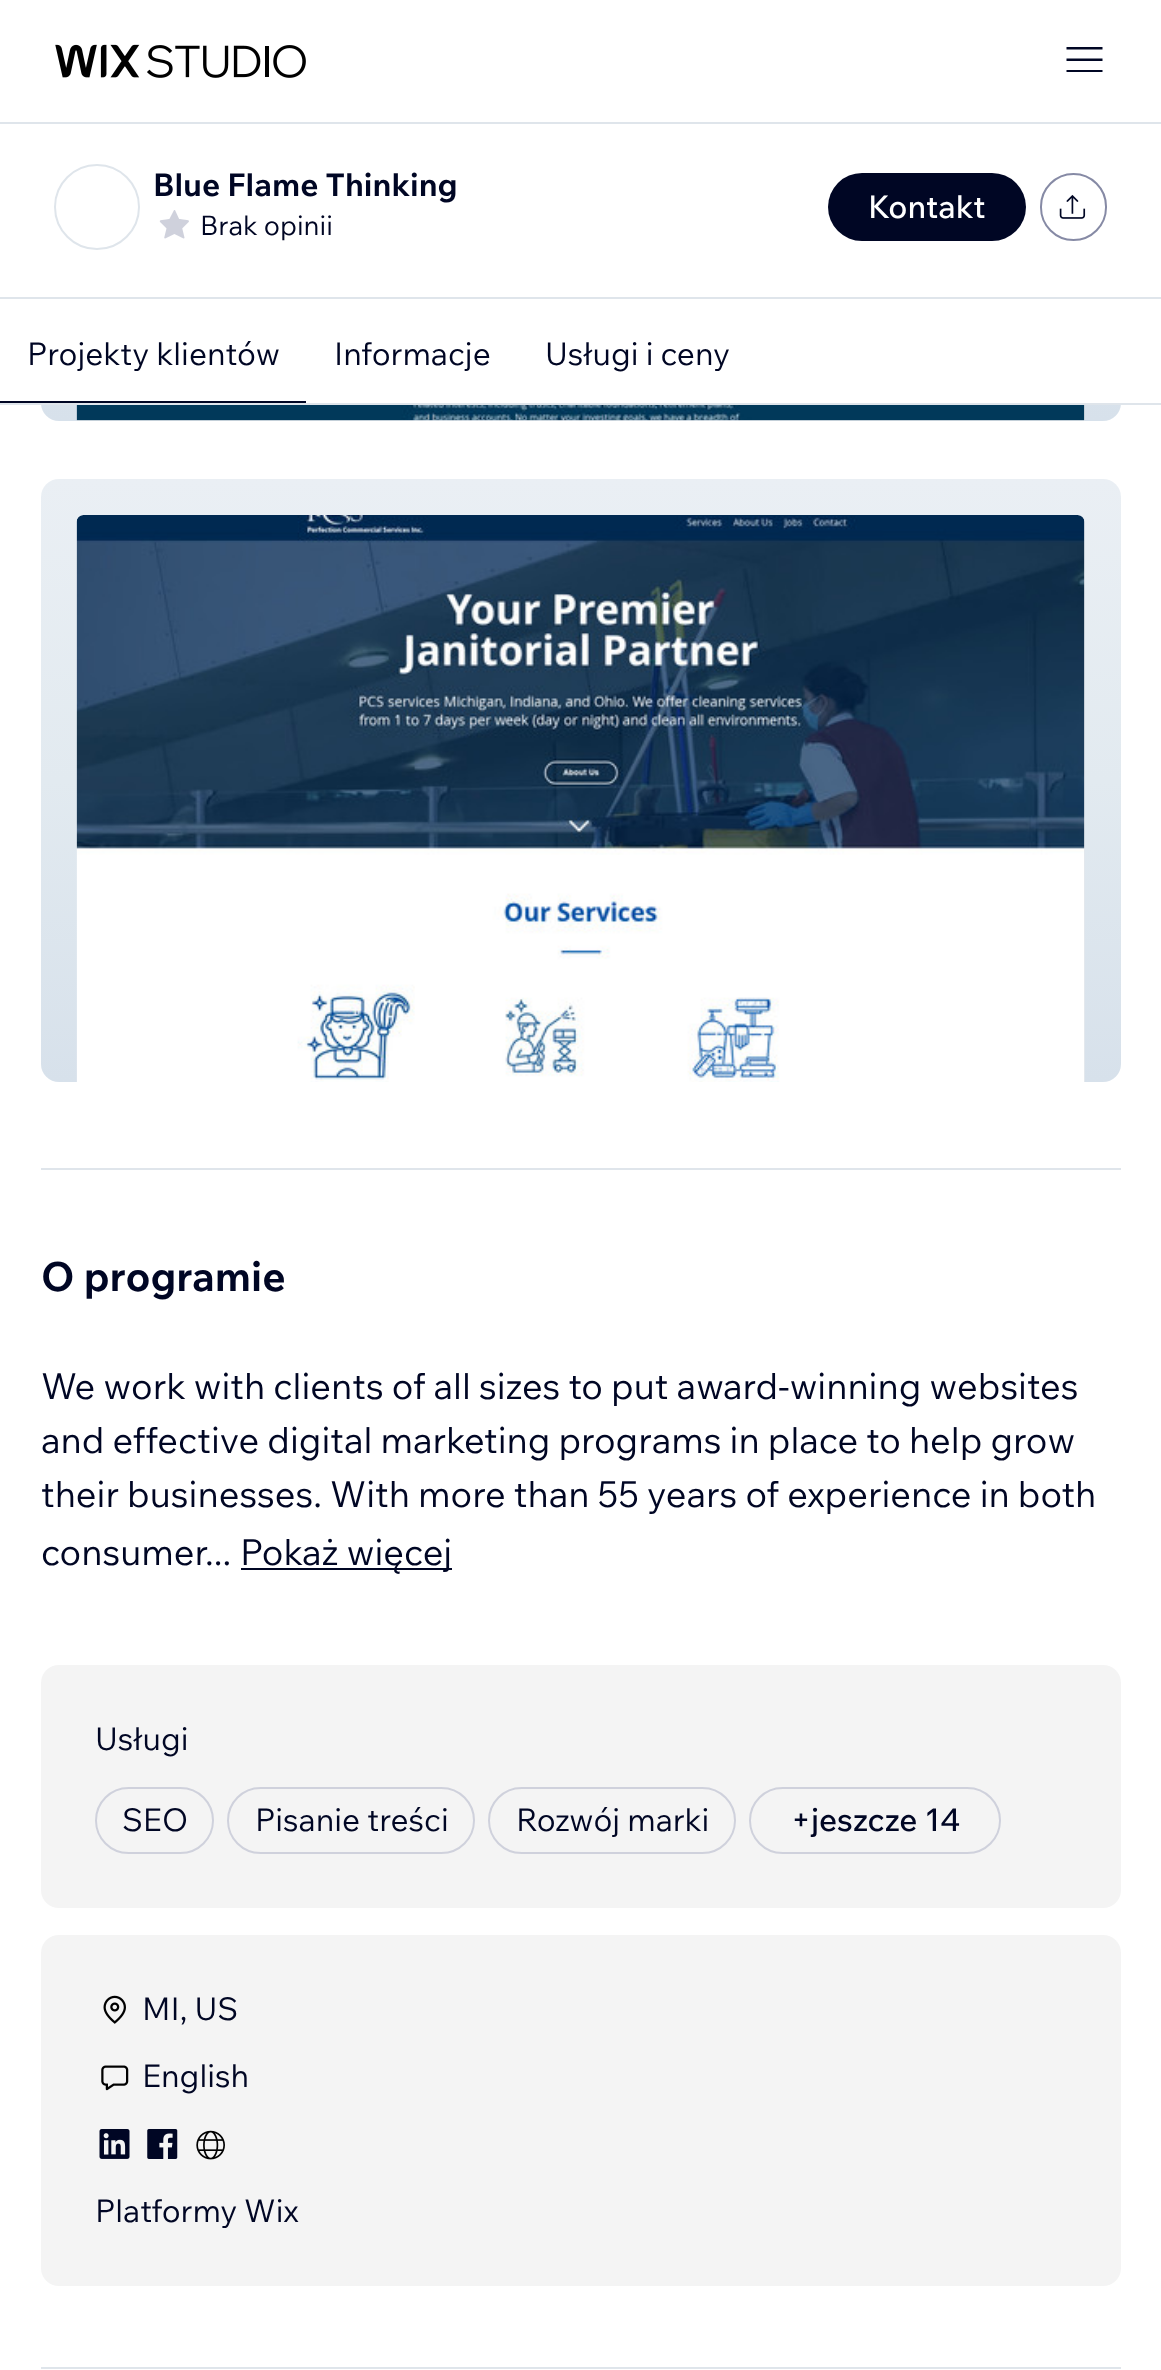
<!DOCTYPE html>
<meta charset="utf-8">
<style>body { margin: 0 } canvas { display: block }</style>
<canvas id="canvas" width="1161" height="2370"></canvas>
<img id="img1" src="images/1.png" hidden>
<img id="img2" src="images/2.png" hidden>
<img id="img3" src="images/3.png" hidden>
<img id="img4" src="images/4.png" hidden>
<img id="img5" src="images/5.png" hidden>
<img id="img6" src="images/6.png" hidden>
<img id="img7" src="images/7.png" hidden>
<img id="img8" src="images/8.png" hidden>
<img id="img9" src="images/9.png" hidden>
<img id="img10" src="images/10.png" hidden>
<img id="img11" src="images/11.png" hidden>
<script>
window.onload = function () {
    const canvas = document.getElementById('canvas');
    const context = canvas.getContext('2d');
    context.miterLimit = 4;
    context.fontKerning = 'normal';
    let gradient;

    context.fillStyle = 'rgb(255, 255, 255)';
    context.fillRect(0, 0, 1161, 2370);
    gradient = context.createLinearGradient(581, -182, 581, 421);
    gradient.addColorStop(0, 'rgb(234, 239, 244)');
    gradient.addColorStop(0.5, 'rgb(226, 234, 240)');
    gradient.addColorStop(1, 'rgb(215, 225, 235)');
    context.fillStyle = gradient;
    context.beginPath();
    context.roundRect(41, -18, 1080, 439, 18);
    context.fill();
    context.fillStyle = 'rgb(255, 255, 255)';
    context.fillRect(41, 0, 1080, 122);
    context.drawImage(document.getElementById('img1'), 55, 44, 85, 34);
    context.drawImage(document.getElementById('img2'), 147, 45, 159, 33);
    context.fillStyle = 'rgb(0, 6, 36)';
    context.beginPath();
    context.moveTo(1102.5, 70);
    context.lineTo(1102.5, 72);
    context.lineTo(1066.5, 72);
    context.lineTo(1066.5, 70);
    context.closePath();
    context.moveTo(1102.5, 58.5);
    context.lineTo(1102.5, 61);
    context.lineTo(1066.5, 61);
    context.lineTo(1066.5, 58.5);
    context.closePath();
    context.moveTo(1102.5, 47);
    context.lineTo(1102.5, 49.5);
    context.lineTo(1066.5, 49.5);
    context.lineTo(1066.5, 47);
    context.closePath();
    context.fill();
    context.fillStyle = 'rgb(223, 229, 235)';
    context.fillRect(0, 122, 1161, 2);
    context.fillStyle = 'rgb(255, 255, 255)';
    context.fillRect(41, 124, 1080, 173);
    context.beginPath();
    context.arc(97, 207, 42, 0, 2 * Math.PI);
    context.strokeStyle = 'rgb(223, 229, 235)';
    context.lineWidth = 2;
    context.stroke();
    context.drawImage(document.getElementById('img3'), 159, 210, 30, 29);
    context.fillStyle = 'rgb(0, 6, 36)';
    context.beginPath();
    context.roundRect(828, 173, 198, 68, 34);
    context.fill();
    context.beginPath();
    context.roundRect(1041, 174, 65, 66, 32.5);
    context.strokeStyle = 'rgb(134, 138, 165)';
    context.stroke();
    context.drawImage(document.getElementById('img4'), 1059, 194, 27, 25);
    context.fillStyle = 'rgb(223, 229, 235)';
    context.fillRect(0, 297, 1161, 2);
    context.fillStyle = 'rgb(255, 255, 255)';
    context.fillRect(41, 299, 1080, 104);
    context.fillStyle = 'rgb(223, 229, 235)';
    context.fillRect(0, 403, 1161, 2);
    context.fillStyle = 'rgb(0, 6, 36)';
    context.fillRect(0, 401, 306, 2);
    context.fillStyle = 'rgb(223, 229, 235)';
    context.fillRect(77, 405, 1008, 16);
    context.drawImage(document.getElementById('img5'), 76, 405, 1009, 16);
    gradient = context.createLinearGradient(581, 479, 581, 1082);
    gradient.addColorStop(0, 'rgb(234, 239, 244)');
    gradient.addColorStop(0.5, 'rgb(226, 234, 240)');
    gradient.addColorStop(1, 'rgb(215, 225, 235)');
    context.fillStyle = gradient;
    context.beginPath();
    context.roundRect(41, 479, 1080, 603, 18);
    context.fill();
    context.fillStyle = 'rgb(223, 229, 235)';
    context.beginPath();
    context.roundRect(77, 515, 1008, 567, [7, 7, 0, 0]);
    context.fill();
    context.drawImage(document.getElementById('img6'), 76, 515, 1009, 567);
    context.fillRect(41, 1168, 1080, 2);
    context.fillStyle = 'rgb(0, 6, 36)';
    context.fillRect(241, 1568, 211, 2);
    context.fillStyle = 'rgb(244, 244, 244)';
    context.beginPath();
    context.roundRect(41, 1665, 1080, 243, 18);
    context.fill();
    context.beginPath();
    context.roundRect(96, 1788, 117, 65, 32.5);
    context.strokeStyle = 'rgb(207, 209, 220)';
    context.stroke();
    context.beginPath();
    context.roundRect(228, 1788, 246, 65, 32.5);
    context.stroke();
    context.beginPath();
    context.roundRect(489, 1788, 246, 65, 32.5);
    context.stroke();
    context.beginPath();
    context.roundRect(750, 1788, 250, 65, 32.5);
    context.stroke();
    context.beginPath();
    context.roundRect(41, 1935, 1080, 351, 18);
    context.fill();
    context.drawImage(document.getElementById('img7'), 103, 1995, 23, 29);
    context.drawImage(document.getElementById('img8'), 101, 2065, 28, 26);
    context.drawImage(document.getElementById('img9'), 99, 2129, 31, 30);
    context.drawImage(document.getElementById('img10'), 147, 2129, 31, 30);
    context.drawImage(document.getElementById('img11'), 196, 2130, 29, 30);
    context.fillStyle = 'rgb(223, 229, 235)';
    context.fillRect(41, 2367, 1080, 2);
    context.font = 'bold 31.5px Wix Madefor Text';
    context.fillStyle = 'rgb(0, 6, 36)';
    context.fillText('Blue Flame Thinking', 153, 196);
    context.font = '27px Wix Madefor Text';
    context.fillText('Brak opinii', 200, 235);
    context.font = '500 31.5px Wix Madefor Text';
    context.fillStyle = 'rgb(255, 255, 255)';
    context.fillText('Kontakt', 868, 218);
    context.font = '31.5px Wix Madefor Text';
    context.fillStyle = 'rgb(0, 6, 36)';
    context.fillText('Projekty klientów', 27, 365);
    context.fillText('Informacje', 334, 365);
    context.fillText('Usługi i ceny', 545, 365);
    context.font = 'bold 40.5px Wix Madefor Text';
    context.fillText('O programie', 41, 1291);
    context.font = '36px Wix Madefor Text';
    context.fillText('We work with clients of all sizes to put award-winning websites', 41, 1399);
    context.fillText('and effective digital marketing programs in place to help grow', 41, 1453);
    context.fillText('their businesses. With more than 55 years of experience in both', 41, 1507);
    context.fillText('consumer', 41, 1565);
    context.fillText('...', 205, 1565);
    context.fillText('Pokaż więcej', 240, 1565);
    context.font = '31.5px Wix Madefor Text';
    context.fillText('Usługi', 95, 1750);
    context.fillText('SEO', 122, 1831);
    context.fillText('Pisanie treści', 255, 1831);
    context.fillText('Rozwój marki', 516, 1831);
    context.font = '500 31.5px Wix Madefor Text';
    context.fillText('+jeszcze 14', 791, 1831);
    context.font = '31.5px Wix Madefor Text';
    context.fillText('MI, US', 142, 2020);
    context.fillText('English', 142, 2087);
    context.fillText('Platformy', 95, 2222);
    context.fillText('Wix', 244, 2222);
};
</script>
